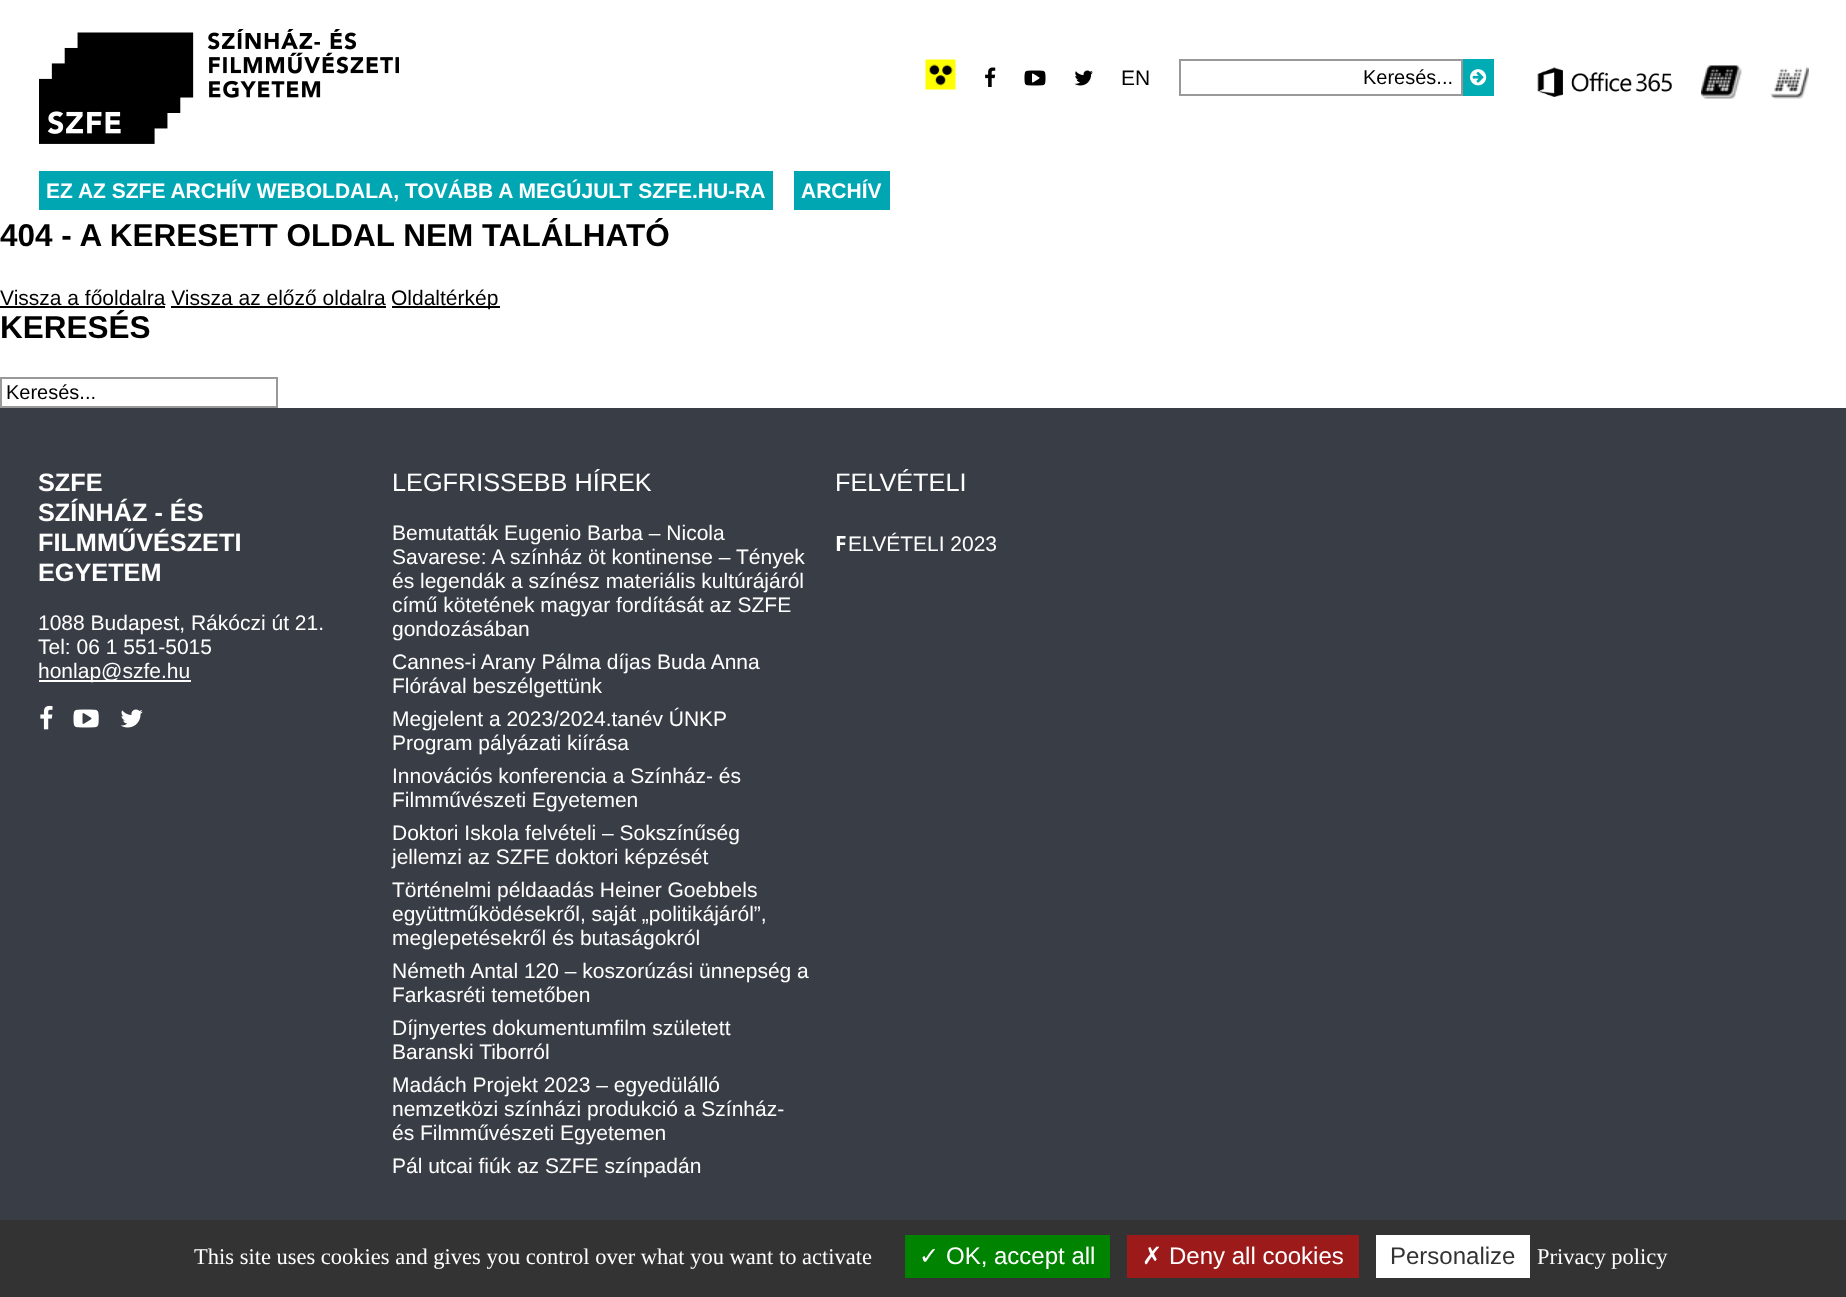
<!DOCTYPE html>
<meta charset="utf-8">
<style>body { margin: 0 } canvas { display: block }</style>
<canvas id="canvas" width="1846" height="1297"></canvas>
<img id="img1" src="images/1.png" hidden>
<img id="img2" src="images/2.png" hidden>
<img id="img3" src="images/3.png" hidden>
<img id="img4" src="images/4.png" hidden>
<img id="img5" src="images/5.png" hidden>
<img id="img6" src="images/6.png" hidden>
<img id="img7" src="images/7.png" hidden>
<img id="img8" src="images/8.png" hidden>
<img id="img9" src="images/9.png" hidden>
<img id="img10" src="images/10.png" hidden>
<img id="img11" src="images/11.png" hidden>
<img id="img12" src="images/12.png" hidden>
<script>
window.onload = function () {
    const canvas = document.getElementById('canvas');
    const context = canvas.getContext('2d');
    context.miterLimit = 4;
    context.fontKerning = 'normal';

    context.fillStyle = 'rgb(255, 255, 255)';
    context.fillRect(0, 0, 1846, 1297);
    context.drawImage(document.getElementById('img1'), 39, 29, 360, 115);
    context.drawImage(document.getElementById('img2'), 925, 59, 31, 31);
    context.drawImage(document.getElementById('img3'), 985, 67, 11, 20);
    context.drawImage(document.getElementById('img4'), 1024, 70, 22, 16);
    context.drawImage(document.getElementById('img5'), 1074, 70, 19, 16);
    context.strokeStyle = 'rgb(153, 153, 153)';
    context.lineWidth = 2;
    context.strokeRect(1180, 60, 282, 35);
    context.fillStyle = 'rgb(0, 172, 180)';
    context.fillRect(1463, 59, 31, 37);
    context.drawImage(document.getElementById('img6'), 1470, 69, 17, 17);
    context.drawImage(document.getElementById('img7'), 1537, 67, 135, 30);
    context.drawImage(document.getElementById('img8'), 1701, 65, 41, 34);
    context.drawImage(document.getElementById('img9'), 1770, 66, 39, 33);
    context.fillStyle = 'rgb(0, 167, 179)';
    context.fillRect(39, 171, 734, 39);
    context.fillRect(794, 171, 96, 39);
    context.fillStyle = 'rgb(0, 0, 0)';
    context.fillRect(0, 306, 165, 2);
    context.fillRect(392, 306, 108, 2);
    context.fillRect(171, 306, 215, 2);
    context.strokeRect(1, 378, 276, 29);
    context.fillStyle = 'rgb(57, 62, 70)';
    context.fillRect(0, 408, 1846, 812);
    context.fillStyle = 'rgb(255, 255, 255)';
    context.fillRect(39, 680, 152, 2);
    context.drawImage(document.getElementById('img10'), 40, 705, 13, 25);
    context.drawImage(document.getElementById('img11'), 73, 709, 26, 19);
    context.drawImage(document.getElementById('img12'), 120, 709, 23, 19);
    context.fillStyle = 'rgb(51, 51, 51)';
    context.fillRect(0, 1220, 1846, 77);
    context.fillStyle = 'rgb(0, 131, 0)';
    context.fillRect(905, 1235, 205, 43);
    context.fillStyle = 'rgb(156, 26, 26)';
    context.fillRect(1127, 1235, 232, 43);
    context.fillStyle = 'rgb(255, 255, 255)';
    context.fillRect(1376, 1235, 154, 43);
    context.font = '21px Liberation Sans';
    context.fillStyle = 'rgb(0, 0, 0)';
    context.fillText('EN', 1121, 85);
    context.font = '20px Liberation Sans';
    context.fillText('Keresés...', 1363, 84);
    context.font = 'bold 21px Liberation Sans';
    context.fillStyle = 'rgb(255, 255, 255)';
    context.fillText('EZ AZ SZFE ARCHÍV WEBOLDALA, TOVÁBB A MEGÚJULT SZFE.HU-RA', 46, 198);
    context.fillText('ARCHÍV', 801, 198);
    context.font = 'bold 31.5px Liberation Sans';
    context.fillStyle = 'rgb(0, 0, 0)';
    context.fillText('404 - A KERESETT OLDAL NEM TALÁLHATÓ', 0, 246);
    context.font = '21px Liberation Sans';
    context.fillText('Vissza a főoldalra Vissza az előző oldalra', 0, 305);
    context.fillText('Oldaltérkép', 391, 305);
    context.font = 'bold 31.5px Liberation Sans';
    context.fillText('KERESÉS', 0, 338);
    context.font = '20px Liberation Sans';
    context.fillText('Keresés...', 6, 399);
    context.font = 'bold 25.25px Liberation Sans';
    context.fillStyle = 'rgb(255, 255, 255)';
    context.fillText('SZFE', 38, 491);
    context.fillText('SZÍNHÁZ - ÉS', 38, 521);
    context.fillText('FILMMŰVÉSZETI', 38, 551);
    context.fillText('EGYETEM', 38, 581);
    context.font = '21px Liberation Sans';
    context.fillText('1088 Budapest, Rákóczi út 21.', 38, 630);
    context.fillText('Tel: 06 1 551-5015', 38, 654);
    context.fillText('honlap@szfe.hu', 38, 678);
    context.font = '25.25px Liberation Sans';
    context.fillText('LEGFRISSEBB HÍREK', 392, 491);
    context.font = '21px Liberation Sans';
    context.fillText('Bemutatták Eugenio Barba – Nicola', 392, 540);
    context.fillText('Savarese: A színház öt kontinense – Tények', 392, 564);
    context.fillText('és legendák a színész materiális kultúrájáról', 392, 588);
    context.fillText('című kötetének magyar fordítását az SZFE', 392, 612);
    context.fillText('gondozásában', 392, 636);
    context.fillText('Cannes-i Arany Pálma díjas Buda Anna', 392, 669);
    context.fillText('Flórával beszélgettünk', 392, 693);
    context.fillText('Megjelent a 2023/2024.tanév ÚNKP', 392, 726);
    context.fillText('Program pályázati kiírása', 392, 750);
    context.fillText('Innovációs konferencia a Színház- és', 392, 783);
    context.fillText('Filmművészeti Egyetemen', 392, 807);
    context.fillText('Doktori Iskola felvételi – Sokszínűség', 392, 840);
    context.fillText('jellemzi az SZFE doktori képzését', 392, 864);
    context.fillText('Történelmi példaadás Heiner Goebbels', 392, 897);
    context.fillText('együttműködésekről, saját „politikájáról”,', 392, 921);
    context.fillText('meglepetésekről és butaságokról', 392, 945);
    context.fillText('Németh Antal 120 – koszorúzási ünnepség a', 392, 978);
    context.fillText('Farkasréti temetőben', 392, 1002);
    context.fillText('Díjnyertes dokumentumfilm született', 392, 1035);
    context.fillText('Baranski Tiborról', 392, 1059);
    context.fillText('Madách Projekt 2023 – egyedülálló', 392, 1092);
    context.fillText('nemzetközi színházi produkció a Színház-', 392, 1116);
    context.fillText('és Filmművészeti Egyetemen', 392, 1140);
    context.fillText('Pál utcai fiúk az SZFE színpadán', 392, 1173);
    context.font = '25.25px Liberation Sans';
    context.fillText('FELVÉTELI', 835, 491);
    context.font = 'bold 21px Noto Sans';
    context.fillText('F', 835, 551);
    context.font = '21px Liberation Sans';
    context.fillText('ELVÉTELI 2023', 848, 551);
    context.font = '22.5px Liberation Serif';
    context.fillText('This site uses cookies and gives you control over what you want to activate', 194, 1264);
    context.font = '24px DejaVu Sans';
    context.fillText('✓', 919, 1264);
    context.font = '24px Liberation Sans';
    context.fillText('OK, accept all', 946, 1264);
    context.font = '24px DejaVu Sans';
    context.fillText('✗', 1142, 1264);
    context.font = '24px Liberation Sans';
    context.fillText('Deny all cookies', 1169, 1264);
    context.fillStyle = 'rgb(51, 51, 51)';
    context.fillText('Personalize', 1390, 1264);
    context.font = '22.5px Liberation Serif';
    context.fillStyle = 'rgb(255, 255, 255)';
    context.fillText('Privacy policy', 1537, 1264);
};
</script>
